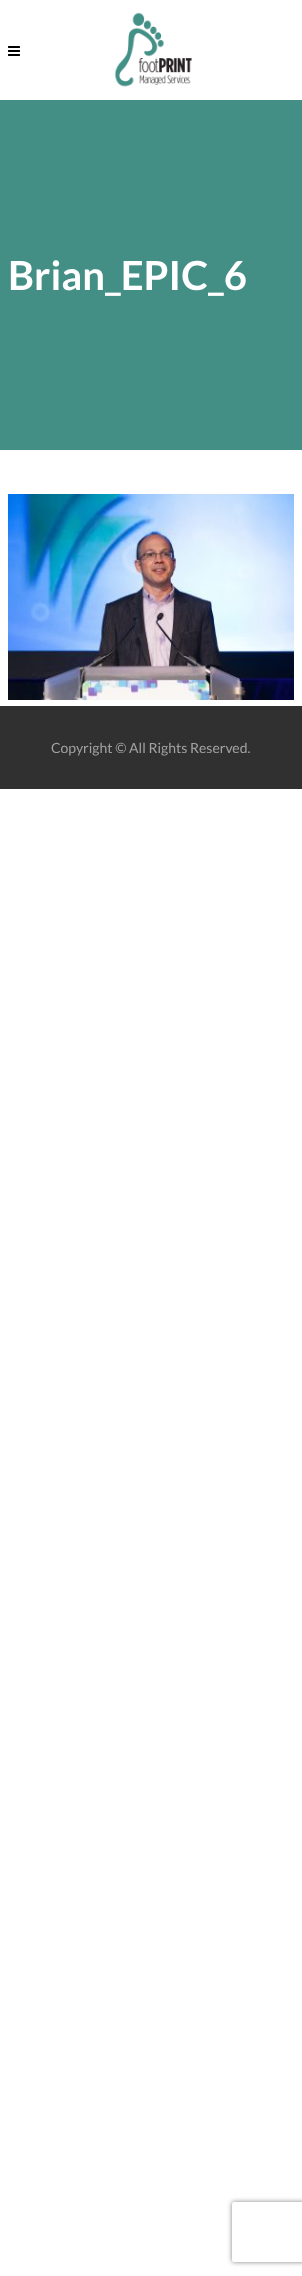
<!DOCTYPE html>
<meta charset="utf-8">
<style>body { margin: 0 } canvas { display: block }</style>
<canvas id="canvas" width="302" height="2276"></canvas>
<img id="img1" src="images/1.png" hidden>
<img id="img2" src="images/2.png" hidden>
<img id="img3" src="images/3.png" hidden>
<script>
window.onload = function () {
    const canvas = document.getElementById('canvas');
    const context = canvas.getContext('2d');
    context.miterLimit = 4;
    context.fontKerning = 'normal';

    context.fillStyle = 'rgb(255, 255, 255)';
    context.fillRect(0, 0, 302, 2276);
    context.drawImage(document.getElementById('img1'), 8, 46, 12, 10);
    context.drawImage(document.getElementById('img2'), 114, 12, 78, 75);
    context.fillStyle = 'rgb(67, 143, 134)';
    context.fillRect(0, 100, 302, 350);
    context.drawImage(document.getElementById('img3'), 8, 494, 286, 206);
    context.fillStyle = 'rgb(48, 48, 48)';
    context.fillRect(0, 706, 302, 83);
    context.save();
    context.beginPath();
    context.moveTo(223, 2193);
    context.lineTo(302, 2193);
    context.lineTo(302, 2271);
    context.lineTo(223, 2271);
    context.closePath();
    context.moveTo(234, 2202);
    context.lineTo(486, 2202);
    context.bezierCurveTo(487, 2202, 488, 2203, 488, 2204);
    context.lineTo(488, 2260);
    context.bezierCurveTo(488, 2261, 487, 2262, 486, 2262);
    context.lineTo(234, 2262);
    context.bezierCurveTo(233, 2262, 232, 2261, 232, 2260);
    context.lineTo(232, 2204);
    context.bezierCurveTo(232, 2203, 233, 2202, 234, 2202);
    context.closePath();
    context.clip('evenodd');
    context.fillStyle = 'rgb(128, 128, 128)';
    context.filter = 'blur(2.5px)';
    context.beginPath();
    context.roundRect(232, 2202, 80, 60, 2);
    context.fill();
    context.filter = 'none';
    context.restore();
    context.font = 'bold 40px Lato';
    context.fillStyle = 'rgb(255, 255, 255)';
    context.fillText('Brian_EPIC_6', 8, 290);
    context.font = '14px Lato';
    context.fillStyle = 'rgb(162, 162, 162)';
    context.fillText('Copyright © All Rights Reserved.', 51, 753);
};
</script>
